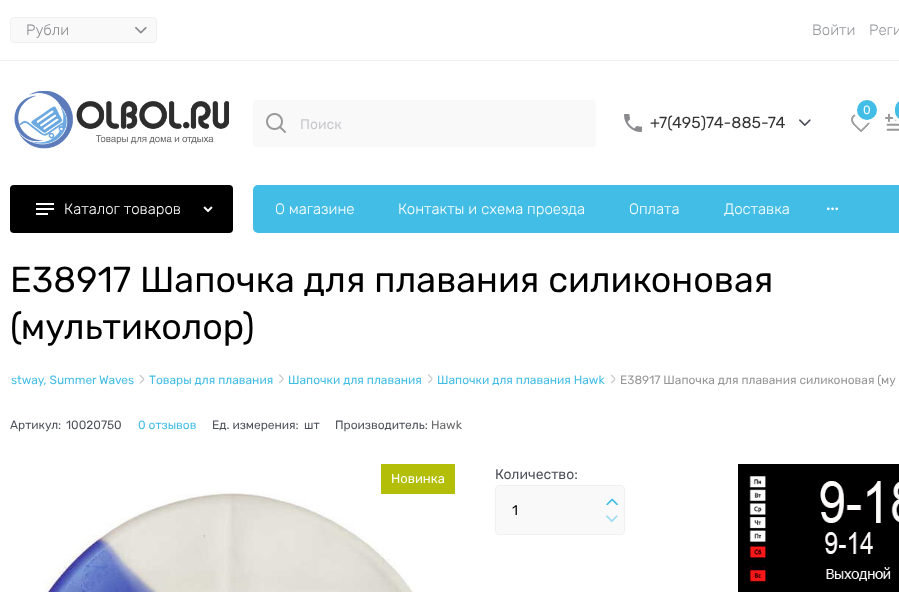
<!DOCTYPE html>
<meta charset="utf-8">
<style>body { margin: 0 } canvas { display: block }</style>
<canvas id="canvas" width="899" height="592"></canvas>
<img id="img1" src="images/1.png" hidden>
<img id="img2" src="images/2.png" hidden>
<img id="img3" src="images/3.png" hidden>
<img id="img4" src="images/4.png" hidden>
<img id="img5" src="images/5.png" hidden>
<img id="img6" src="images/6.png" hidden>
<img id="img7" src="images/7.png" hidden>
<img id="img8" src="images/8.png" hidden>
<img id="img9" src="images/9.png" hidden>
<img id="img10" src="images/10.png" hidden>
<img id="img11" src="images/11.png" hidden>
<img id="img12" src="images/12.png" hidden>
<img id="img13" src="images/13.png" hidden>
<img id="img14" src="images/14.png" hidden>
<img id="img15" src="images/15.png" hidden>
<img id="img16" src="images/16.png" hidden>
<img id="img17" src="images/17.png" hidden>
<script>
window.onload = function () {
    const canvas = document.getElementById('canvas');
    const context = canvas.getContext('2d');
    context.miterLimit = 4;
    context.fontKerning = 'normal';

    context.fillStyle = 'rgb(255, 255, 255)';
    context.fillRect(0, 0, 899, 592);
    context.fillStyle = 'rgb(239, 239, 244)';
    context.fillRect(0, 60, 899, 1);
    context.fillStyle = 'rgb(249, 249, 249)';
    context.beginPath();
    context.roundRect(10.5, 17.5, 146, 25, 3.5);
    context.fill();
    context.strokeStyle = 'rgb(239, 239, 244)';
    context.stroke();
    context.drawImage(document.getElementById('img1'), 135, 27, 12, 7);
    context.drawImage(document.getElementById('img2'), 14, 91, 215, 58);
    context.drawImage(document.getElementById('img3'), 851, 114, 20, 18);
    context.fillStyle = 'rgb(66, 189, 230)';
    context.beginPath();
    context.arc(867, 110, 11.5, 0, 2 * Math.PI);
    context.fill();
    context.strokeStyle = 'rgb(255, 255, 255)';
    context.lineWidth = 3;
    context.stroke();
    context.drawImage(document.getElementById('img4'), 885, 113, 14, 18);
    context.beginPath();
    context.roundRect(893.5, 98.5, 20, 23, 11.5);
    context.fill();
    context.stroke();
    context.fillStyle = 'rgb(249, 249, 249)';
    context.beginPath();
    context.roundRect(253, 100, 343, 47, 4);
    context.fill();
    context.drawImage(document.getElementById('img5'), 266, 113, 20, 20);
    context.drawImage(document.getElementById('img6'), 624, 114, 18, 18);
    context.drawImage(document.getElementById('img7'), 799, 119, 12, 7);
    context.fillStyle = 'rgb(0, 0, 0)';
    context.beginPath();
    context.roundRect(10, 185, 223, 48, 4);
    context.fill();
    context.drawImage(document.getElementById('img8'), 36, 203, 18, 12);
    context.drawImage(document.getElementById('img9'), 203, 206, 10, 7);
    context.fillStyle = 'rgb(66, 189, 230)';
    context.beginPath();
    context.roundRect(253, 185, 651, 48, 5);
    context.fill();
    context.drawImage(document.getElementById('img10'), 827, 207, 11, 4);
    context.drawImage(document.getElementById('img11'), 139, 374, 5, 10);
    context.drawImage(document.getElementById('img12'), 279, 374, 5, 10);
    context.drawImage(document.getElementById('img12'), 428, 374, 5, 10);
    context.drawImage(document.getElementById('img13'), 610, 374, 6, 10);
    context.drawImage(document.getElementById('img14'), 45, 492, 369, 100);
    context.fillStyle = 'rgb(179, 190, 8)';
    context.fillRect(381, 464, 74, 30);
    context.fillStyle = 'rgb(249, 249, 249)';
    context.beginPath();
    context.roundRect(495.5, 485.5, 129, 49, 3.5);
    context.fill();
    context.strokeStyle = 'rgb(239, 239, 244)';
    context.lineWidth = 1;
    context.stroke();
    context.drawImage(document.getElementById('img15'), 606, 498, 12, 7);
    context.drawImage(document.getElementById('img16'), 606, 515, 12, 7);
    context.drawImage(document.getElementById('img17'), 738, 464, 161, 128);
    context.font = '300 15px Rubik';
    context.fillStyle = 'rgb(138, 138, 143)';
    context.fillText('Рубли', 26, 35);
    context.fillStyle = 'rgb(148, 150, 155)';
    context.fillText('Войти', 812, 35);
    context.fillText('Реги', 869, 35);
    context.font = '12px Rubik';
    context.fillStyle = 'rgb(255, 255, 255)';
    context.fillText('0', 863, 114);
    context.font = '14px Rubik';
    context.fillStyle = 'rgb(200, 199, 204)';
    context.fillText('Поиск', 300, 129);
    context.font = '16px Rubik';
    context.fillStyle = 'rgb(51, 51, 51)';
    context.fillText('+7(495)74-885-74', 650, 128);
    context.font = '300 15px Rubik';
    context.fillStyle = 'rgb(255, 255, 255)';
    context.fillText('Каталог товаров', 64, 214);
    context.fillText('О магазине', 275, 214);
    context.fillText('Контакты и схема проезда', 398, 214);
    context.fillText('Оплата', 629, 214);
    context.fillText('Доставка', 724, 214);
    context.font = '36px Rubik';
    context.fillStyle = 'rgb(0, 0, 0)';
    context.fillText('E38917 Шапочка для плавания силиконовая', 10, 292);
    context.fillText('(мультиколор)', 10, 339);
    context.font = '12px Rubik';
    context.fillStyle = 'rgb(66, 189, 230)';
    context.fillText('stway, Summer Waves', 11, 384);
    context.fillText('Товары для плавания', 149, 384);
    context.fillText('Шапочки для плавания', 288, 384);
    context.fillText('Шапочки для плавания Hawk', 437, 384);
    context.fillStyle = 'rgb(150, 148, 148)';
    context.fillText('E38917 Шапочка для плавания силиконовая (му', 620, 384);
    context.fillStyle = 'rgb(75, 79, 88)';
    context.fillText('Артикул:', 10, 429);
    context.fillText('10020750', 66, 429);
    context.fillStyle = 'rgb(66, 189, 230)';
    context.fillText('0 отзывов', 138, 429);
    context.fillStyle = 'rgb(75, 79, 88)';
    context.fillText('Ед. измерения:', 212, 429);
    context.fillText('шт', 304, 429);
    context.fillText('Производитель:', 335, 429);
    context.fillStyle = 'rgb(102, 102, 102)';
    context.fillText('Hawk', 431, 429);
    context.font = '13px Rubik';
    context.fillStyle = 'rgb(255, 255, 255)';
    context.fillText('Новинка', 391, 483);
    context.font = '14px Rubik';
    context.fillStyle = 'rgb(75, 79, 88)';
    context.fillText('Количество:', 495, 479);
    context.fillStyle = 'rgb(0, 0, 0)';
    context.fillText('1', 512, 515);
};
</script>
